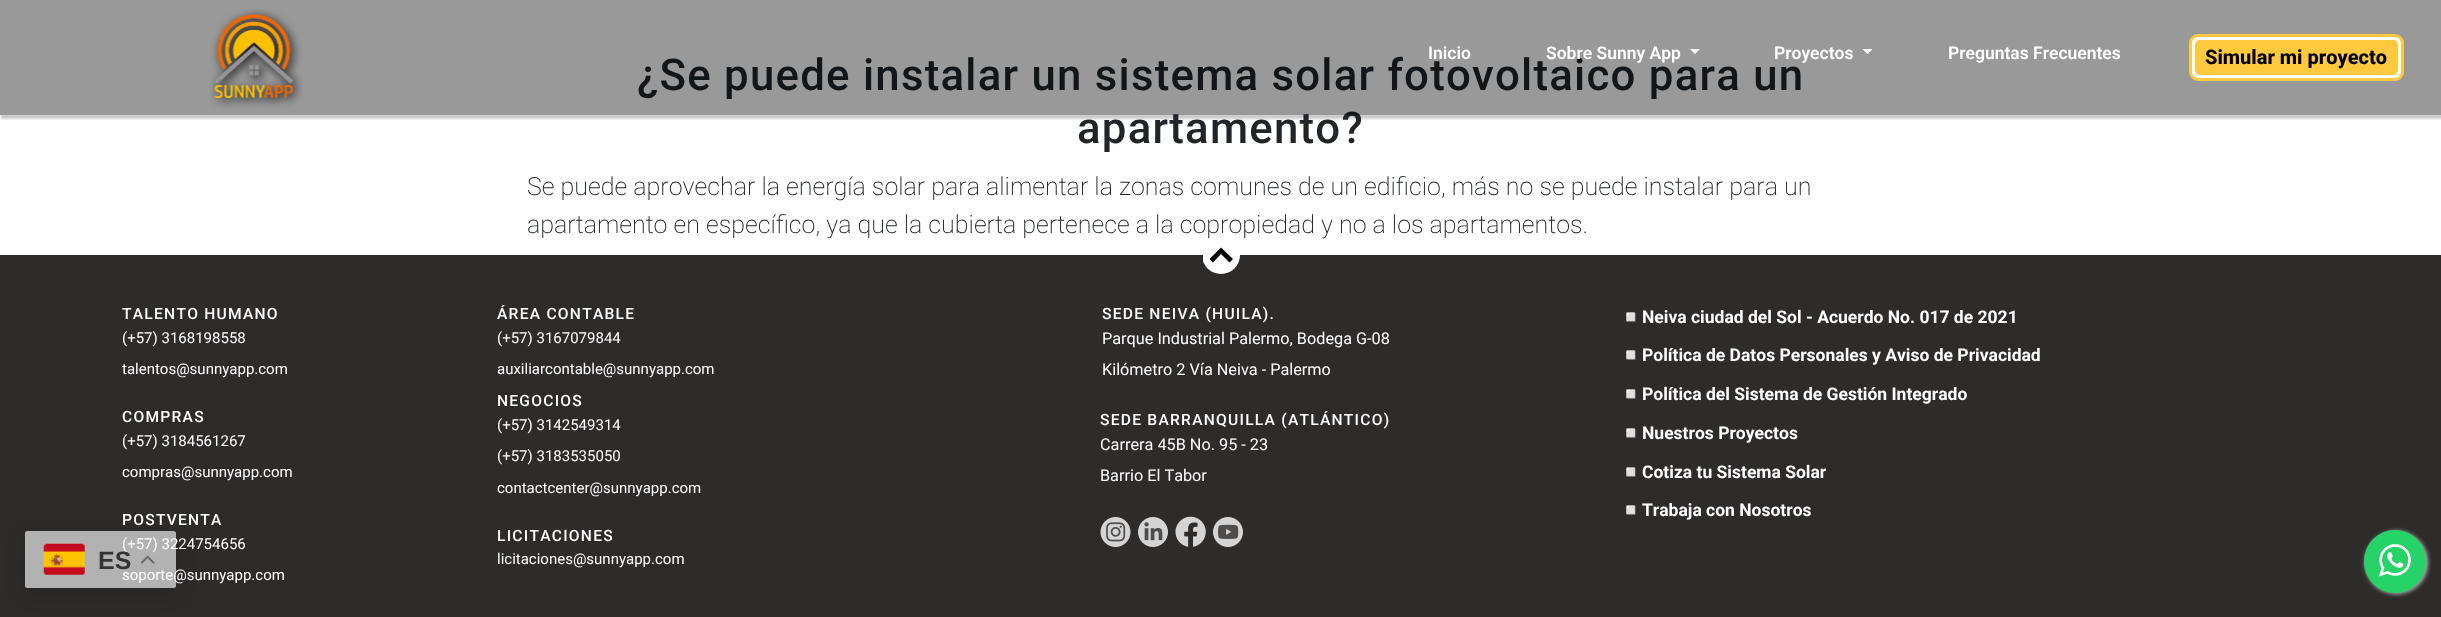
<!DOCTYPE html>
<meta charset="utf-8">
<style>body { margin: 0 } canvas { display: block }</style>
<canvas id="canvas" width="2441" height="617"></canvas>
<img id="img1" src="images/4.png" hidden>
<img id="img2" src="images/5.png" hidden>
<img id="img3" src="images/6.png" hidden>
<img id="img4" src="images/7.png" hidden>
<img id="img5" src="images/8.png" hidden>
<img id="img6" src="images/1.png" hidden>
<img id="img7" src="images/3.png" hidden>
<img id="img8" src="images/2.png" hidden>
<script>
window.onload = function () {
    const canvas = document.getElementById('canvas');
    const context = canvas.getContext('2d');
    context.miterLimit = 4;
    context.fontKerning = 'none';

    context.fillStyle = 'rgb(255, 255, 255)';
    context.fillRect(0, 0, 2441, 617);
    context.save();
    context.beginPath();
    context.rect(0, 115, 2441, 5);
    context.clip();
    context.fillStyle = 'rgba(0, 0, 0, 0.2)';
    context.filter = 'blur(1px)';
    context.beginPath();
    context.rect(1, 1, 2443, 118);
    context.fill();
    context.filter = 'none';
    context.restore();
    context.fillStyle = 'rgb(46, 43, 43)';
    context.fillRect(0, 255, 2441, 362);
    context.save();
    context.beginPath();
    context.moveTo(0, 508);
    context.lineTo(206, 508);
    context.lineTo(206, 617);
    context.lineTo(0, 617);
    context.closePath();
    context.moveTo(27.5, 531);
    context.lineTo(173.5, 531);
    context.bezierCurveTo(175, 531, 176, 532, 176, 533.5);
    context.lineTo(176, 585.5);
    context.bezierCurveTo(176, 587, 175, 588, 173.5, 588);
    context.lineTo(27.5, 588);
    context.bezierCurveTo(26, 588, 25, 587, 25, 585.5);
    context.lineTo(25, 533.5);
    context.bezierCurveTo(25, 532, 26, 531, 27.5, 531);
    context.closePath();
    context.clip('evenodd');
    context.fillStyle = 'rgba(0, 0, 0, 0.15)';
    context.filter = 'blur(9.5px)';
    context.beginPath();
    context.roundRect(25, 538, 151, 56, 2.5);
    context.fill();
    context.filter = 'none';
    context.restore();
    context.drawImage(document.getElementById('img1'), 1100, 517, 31, 30);
    context.drawImage(document.getElementById('img2'), 1138, 517, 30, 30);
    context.drawImage(document.getElementById('img3'), 1175, 516, 31, 31);
    context.drawImage(document.getElementById('img4'), 1213, 517, 30, 30);
    context.fillStyle = 'rgb(185, 185, 185)';
    context.filter = 'blur(2px)';
    context.beginPath();
    context.roundRect(2365, 531, 63, 63, 31.5);
    context.fill();
    context.filter = 'none';
    context.fillStyle = 'rgb(37, 211, 102)';
    context.beginPath();
    context.roundRect(2364, 530, 62, 63, 31);
    context.fill();
    context.drawImage(document.getElementById('img5'), 2378, 544, 33, 33);
    context.letterSpacing = '1.25px';
    context.font = '500 43.75px Roboto';
    context.fillStyle = 'rgb(33, 37, 41)';
    context.fillText('¿Se puede instalar un sistema solar fotovoltaico para un', 637, 90);
    context.fillText('apartamento?', 1077, 143);
    context.letterSpacing = '0px';
    context.font = '200 25px Roboto';
    context.fillText('Se puede aprovechar la energía solar para alimentar la zonas comunes de un edificio, más no se puede instalar para un', 527, 195);
    context.fillText('apartamento en específico, ya que la cubierta pertenece a la copropiedad y no a los apartamentos.', 527, 233);
    context.fillStyle = 'rgba(0, 0, 0, 0.4)';
    context.fillRect(0, 0, 2441, 115);
    context.drawImage(document.getElementById('img6'), 210, 9, 93, 99);
    context.font = '600 17.5px Roboto';
    context.fillStyle = 'rgb(255, 255, 255)';
    context.fillText('Inicio', 1428, 59);
    context.fillText('Sobre Sunny App', 1546, 59);
    context.beginPath();
    context.moveTo(1690, 49);
    context.lineTo(1700, 49);
    context.lineTo(1695, 54);
    context.closePath();
    context.fill();
    context.fillText('Proyectos', 1774, 59);
    context.beginPath();
    context.moveTo(1862.5, 49);
    context.lineTo(1872.5, 49);
    context.lineTo(1867.5, 54);
    context.closePath();
    context.fill();
    context.fillText('Preguntas Frecuentes', 1948, 59);
    context.beginPath();
    context.roundRect(2190.5, 35.5, 212, 44, 7.5);
    context.fill();
    context.strokeStyle = 'rgb(255, 201, 63)';
    context.lineWidth = 3;
    context.stroke();
    context.fillStyle = 'rgb(255, 201, 63)';
    context.beginPath();
    context.roundRect(2195, 40, 203, 35, 5);
    context.fill();
    context.font = '800 20px Roboto';
    context.fillStyle = 'rgb(0, 0, 0)';
    context.fillText('Simular mi proyecto', 2205, 64);
    context.save();
    context.beginPath();
    context.rect(1203, 236, 37, 38);
    context.clip();
    context.fillStyle = 'rgb(255, 255, 255)';
    context.beginPath();
    context.arc(1221, 255, 19, 0, 2 * Math.PI);
    context.fill();
    context.restore();
    context.beginPath();
    context.moveTo(1221, 247.5);
    context.lineTo(1209.5, 259);
    context.lineTo(1213, 262.5);
    context.lineTo(1221, 254);
    context.lineTo(1229.5, 262.5);
    context.lineTo(1233, 259);
    context.closePath();
    context.fill();
    context.letterSpacing = '1.25px';
    context.font = '500 15.6px Roboto';
    context.fillStyle = 'rgb(255, 255, 255)';
    context.fillText('TALENTO HUMANO', 122, 319);
    context.letterSpacing = '0px';
    context.font = '15px Roboto';
    context.fillText('(+57) 3168198558', 122, 343);
    context.fillText('talentos@sunnyapp.com', 122, 374);
    context.letterSpacing = '1.25px';
    context.font = '500 15.6px Roboto';
    context.fillText('ÁREA CONTABLE', 497, 319);
    context.letterSpacing = '0px';
    context.font = '15px Roboto';
    context.fillText('(+57) 3167079844', 497, 343);
    context.fillText('auxiliarcontable@sunnyapp.com', 497, 374);
    context.letterSpacing = '1.25px';
    context.font = '500 15.6px Roboto';
    context.fillText('COMPRAS', 122, 422);
    context.letterSpacing = '0px';
    context.font = '15px Roboto';
    context.fillText('(+57) 3184561267', 122, 446);
    context.fillText('compras@sunnyapp.com', 122, 477);
    context.letterSpacing = '1.25px';
    context.font = '500 15.6px Roboto';
    context.fillText('NEGOCIOS', 497, 406);
    context.letterSpacing = '0px';
    context.font = '15px Roboto';
    context.fillText('(+57) 3142549314', 497, 430);
    context.fillText('(+57) 3183535050', 497, 461);
    context.fillText('contactcenter@sunnyapp.com', 497, 493);
    context.letterSpacing = '1.25px';
    context.font = '500 15.6px Roboto';
    context.fillText('POSTVENTA', 122, 525);
    context.letterSpacing = '0px';
    context.font = '15px Roboto';
    context.fillText('(+57) 3224754656', 122, 549);
    context.fillText('soporte@sunnyapp.com', 122, 580);
    context.fillStyle = 'rgba(255, 255, 255, 0.4)';
    context.beginPath();
    context.roundRect(25, 531, 151, 57, 2.5);
    context.fill();
    context.beginPath();
    context.roundRect(25, 531, 151, 57, 2.5);
    context.fill();
    context.drawImage(document.getElementById('img7'), 141, 555, 14, 9);
    context.font = 'bold 25px Liberation Sans';
    context.fillStyle = 'rgb(51, 51, 51)';
    context.fillText('ES', 98, 569);
    context.drawImage(document.getElementById('img8'), 43, 543, 42, 32);
    context.letterSpacing = '1.25px';
    context.font = '500 15.6px Roboto';
    context.fillStyle = 'rgb(255, 255, 255)';
    context.fillText('LICITACIONES', 497, 541);
    context.letterSpacing = '0px';
    context.font = '15px Roboto';
    context.fillText('licitaciones@sunnyapp.com', 497, 564);
    context.letterSpacing = '1.25px';
    context.font = '500 15.6px Roboto';
    context.fillText('SEDE NEIVA (HUILA).', 1102, 319);
    context.letterSpacing = '0px';
    context.font = '16.25px Roboto';
    context.fillText('Parque Industrial Palermo, Bodega G-08', 1102, 344);
    context.fillText('Kilómetro 2 Vía Neiva - Palermo', 1102, 375);
    context.letterSpacing = '1.25px';
    context.font = '500 15.6px Roboto';
    context.fillText('SEDE BARRANQUILLA (ATLÁNTICO)', 1100, 425);
    context.letterSpacing = '0px';
    context.font = '16.25px Roboto';
    context.fillText('Carrera 45B No. 95 - 23', 1100, 450);
    context.fillText('Barrio El Tabor', 1100, 481);
    context.font = 'bold 17.5px Noto Color Emoji';
    context.fillText('◽', 1620, 323);
    context.font = 'bold 17.5px Roboto';
    context.fillText('Neiva ciudad del Sol - Acuerdo No. 017 de 2021', 1642, 323);
    context.font = 'bold 17.5px Noto Color Emoji';
    context.fillText('◽', 1620, 361);
    context.font = 'bold 17.5px Roboto';
    context.fillText('Política de Datos Personales y Aviso de Privacidad', 1642, 361);
    context.font = 'bold 17.5px Noto Color Emoji';
    context.fillText('◽', 1620, 400);
    context.font = 'bold 17.5px Roboto';
    context.fillText('Política del Sistema de Gestión Integrado', 1642, 400);
    context.font = 'bold 17.5px Noto Color Emoji';
    context.fillText('◽', 1620, 439);
    context.font = 'bold 17.5px Roboto';
    context.fillText('Nuestros Proyectos', 1642, 439);
    context.font = 'bold 17.5px Noto Color Emoji';
    context.fillText('◽', 1620, 478);
    context.font = 'bold 17.5px Roboto';
    context.fillText('Cotiza tu Sistema Solar', 1642, 478);
    context.font = 'bold 17.5px Noto Color Emoji';
    context.fillText('◽', 1620, 516);
    context.font = 'bold 17.5px Roboto';
    context.fillText('Trabaja con Nosotros', 1642, 516);
};
</script>
